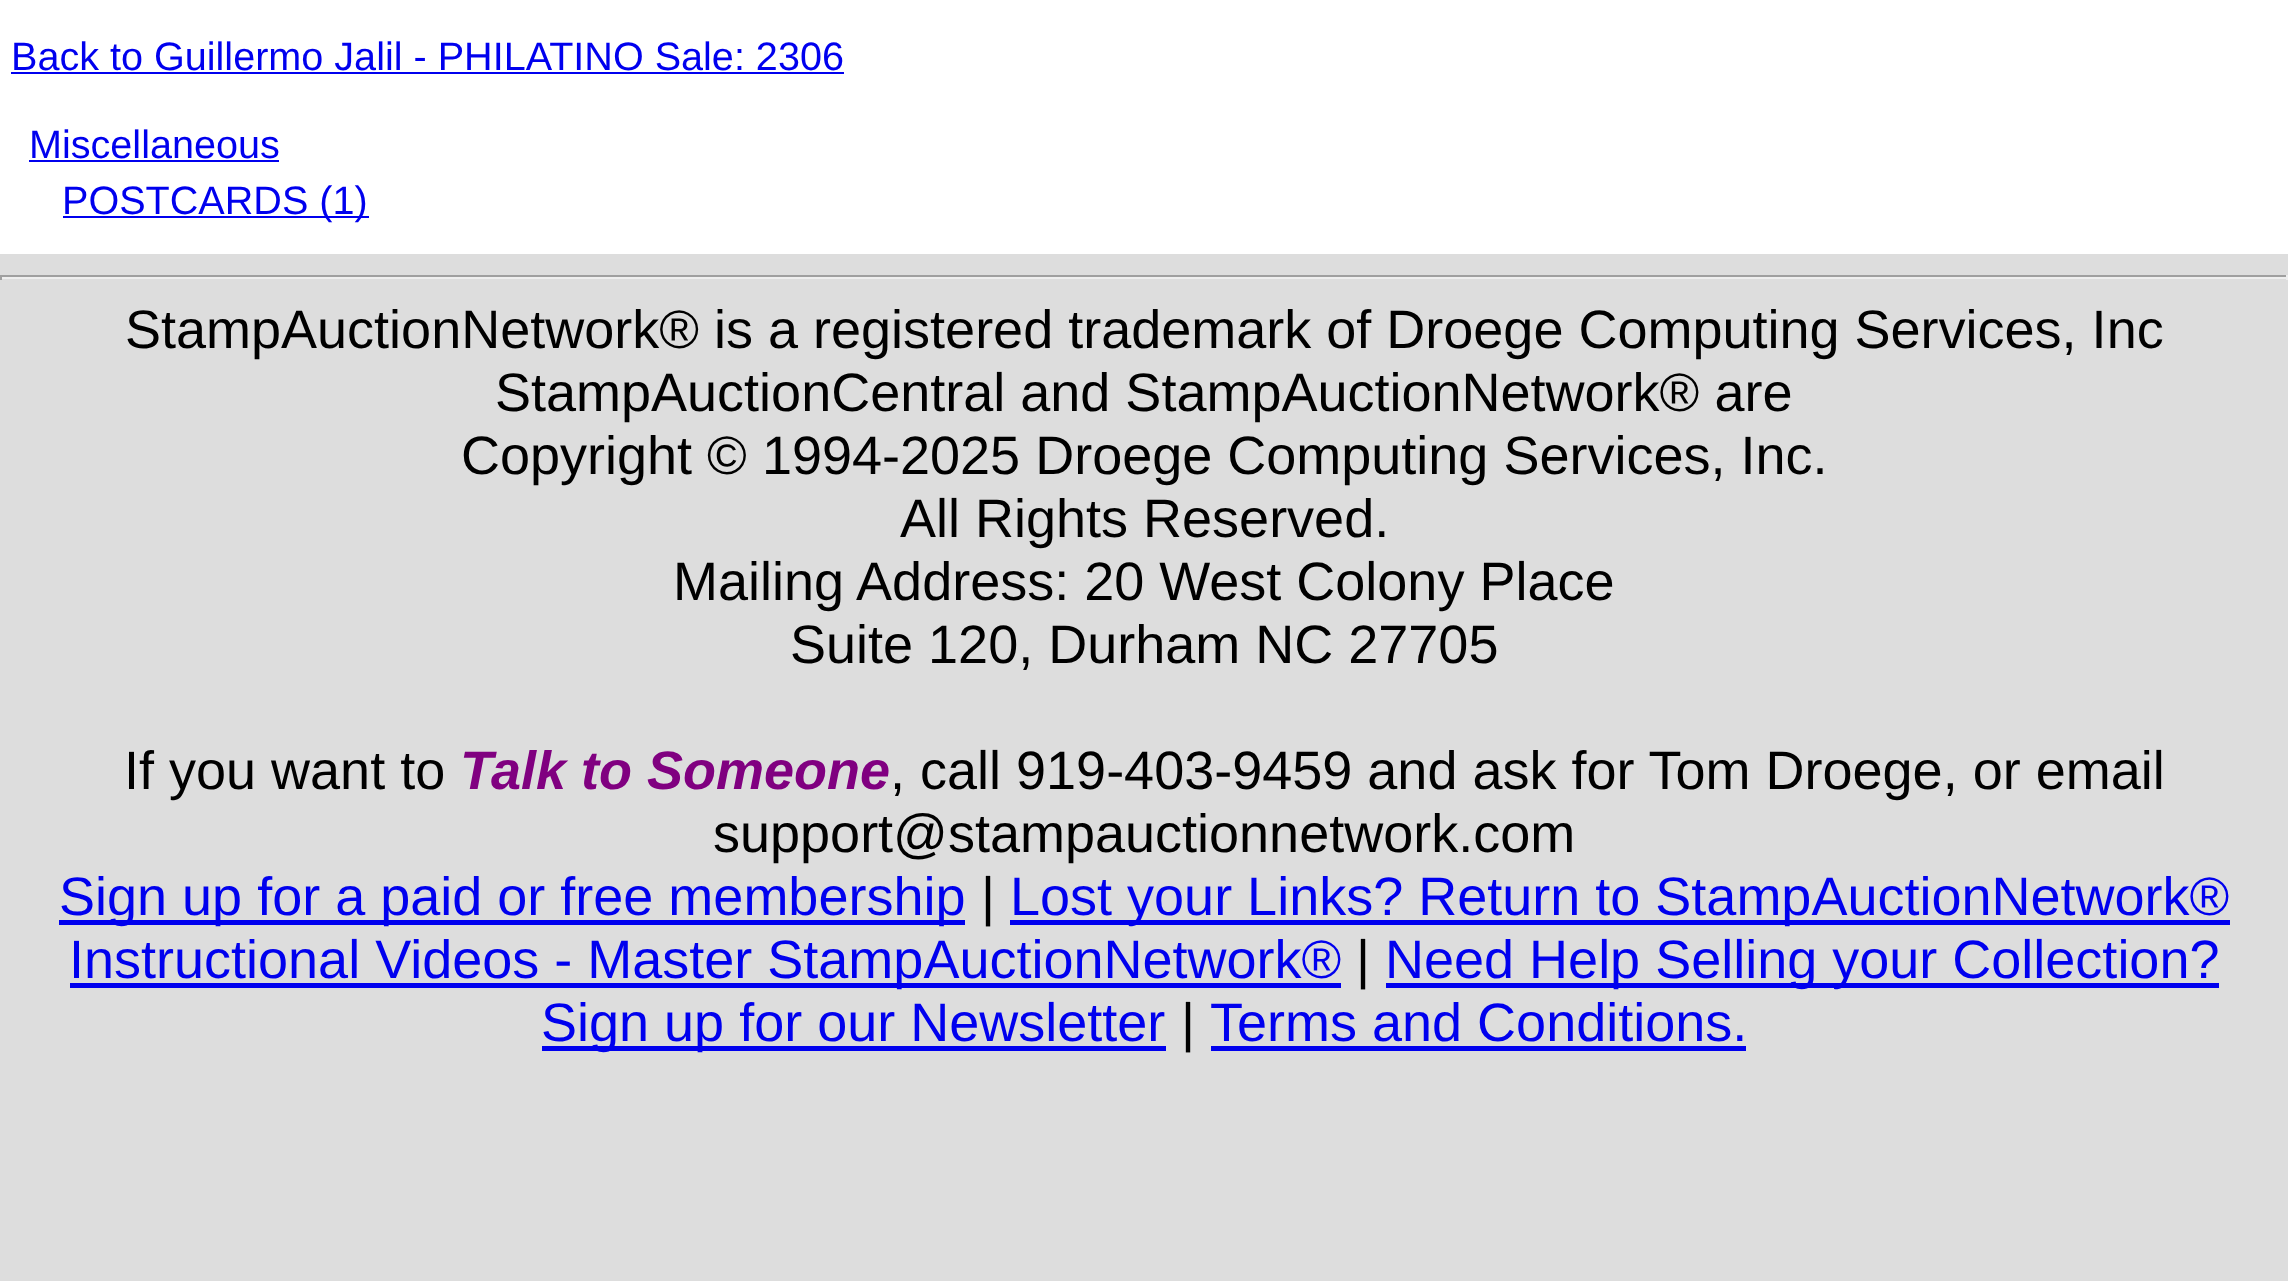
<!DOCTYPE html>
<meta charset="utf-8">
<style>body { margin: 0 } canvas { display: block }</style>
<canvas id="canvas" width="2288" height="1281"></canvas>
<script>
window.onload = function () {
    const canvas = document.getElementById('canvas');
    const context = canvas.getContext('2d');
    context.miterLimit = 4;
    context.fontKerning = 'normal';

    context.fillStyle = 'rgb(221, 221, 221)';
    context.fillRect(0, 0, 2288, 1281);
    context.fillStyle = 'rgb(255, 255, 255)';
    context.fillRect(0, 0, 2288, 254);
    context.fillStyle = 'rgb(0, 0, 238)';
    context.fillRect(11, 72, 833, 2);
    context.fillRect(29, 160, 250, 2);
    context.fillRect(63, 216, 306, 2);
    context.fillStyle = 'rgb(159, 159, 159)';
    context.fillRect(0, 275, 2288, 2);
    context.fillStyle = 'rgb(238, 238, 238)';
    context.fillRect(2286, 275, 2, 5);
    context.fillRect(0, 277, 2288, 2);
    context.fillStyle = 'rgb(159, 159, 159)';
    context.fillRect(0, 275, 2, 5);
    context.fillStyle = 'rgb(0, 0, 238)';
    context.fillRect(59, 920, 906, 5);
    context.fillRect(1010, 920, 1220, 5);
    context.fillRect(70, 983, 1271, 5);
    context.fillRect(1386, 983, 833, 5);
    context.fillRect(542, 1046, 624, 5);
    context.fillRect(1211, 1046, 535, 5);
    context.font = '39.6px Liberation Sans';
    context.fillText('Back to Guillermo Jalil - PHILATINO Sale: 2306', 11, 70);
    context.fillText('Miscellaneous', 29, 158);
    context.fillText('POSTCARDS (1)', 62, 214);
    context.font = '54px Liberation Sans';
    context.fillStyle = 'rgb(0, 0, 0)';
    context.fillText('StampAuctionNetwork® is a registered trademark of Droege Computing Services, Inc', 125, 348);
    context.fillText('StampAuctionCentral and StampAuctionNetwork® are', 495, 411);
    context.fillText('Copyright © 1994-2025 Droege Computing Services, Inc.', 461, 474);
    context.fillText('All Rights Reserved.', 900, 537);
    context.fillText('Mailing Address: 20 West Colony Place', 673, 600);
    context.fillText('Suite 120, Durham NC 27705', 790, 663);
    context.fillText('If you want to', 124, 789);
    context.font = 'italic bold 54px Liberation Sans';
    context.fillStyle = 'rgb(128, 0, 128)';
    context.fillText('Talk to Someone', 460, 789);
    context.font = '54px Liberation Sans';
    context.fillStyle = 'rgb(0, 0, 0)';
    context.fillText(', call 919-403-9459 and ask for Tom Droege, or email', 890, 789);
    context.fillText('support@stampauctionnetwork.com', 713, 852);
    context.fillStyle = 'rgb(0, 0, 238)';
    context.fillText('Sign up for a paid or free membership', 59, 915);
    context.fillStyle = 'rgb(0, 0, 0)';
    context.fillText('|', 981, 915);
    context.fillStyle = 'rgb(0, 0, 238)';
    context.fillText('Lost your Links? Return to StampAuctionNetwork®', 1010, 915);
    context.fillText('Instructional Videos - Master StampAuctionNetwork®', 69, 978);
    context.fillStyle = 'rgb(0, 0, 0)';
    context.fillText('|', 1356, 978);
    context.fillStyle = 'rgb(0, 0, 238)';
    context.fillText('Need Help Selling your Collection?', 1385, 978);
    context.fillText('Sign up for our Newsletter', 541, 1041);
    context.fillStyle = 'rgb(0, 0, 0)';
    context.fillText('|', 1181, 1041);
    context.fillStyle = 'rgb(0, 0, 238)';
    context.fillText('Terms and Conditions.', 1210, 1041);
};
</script>
